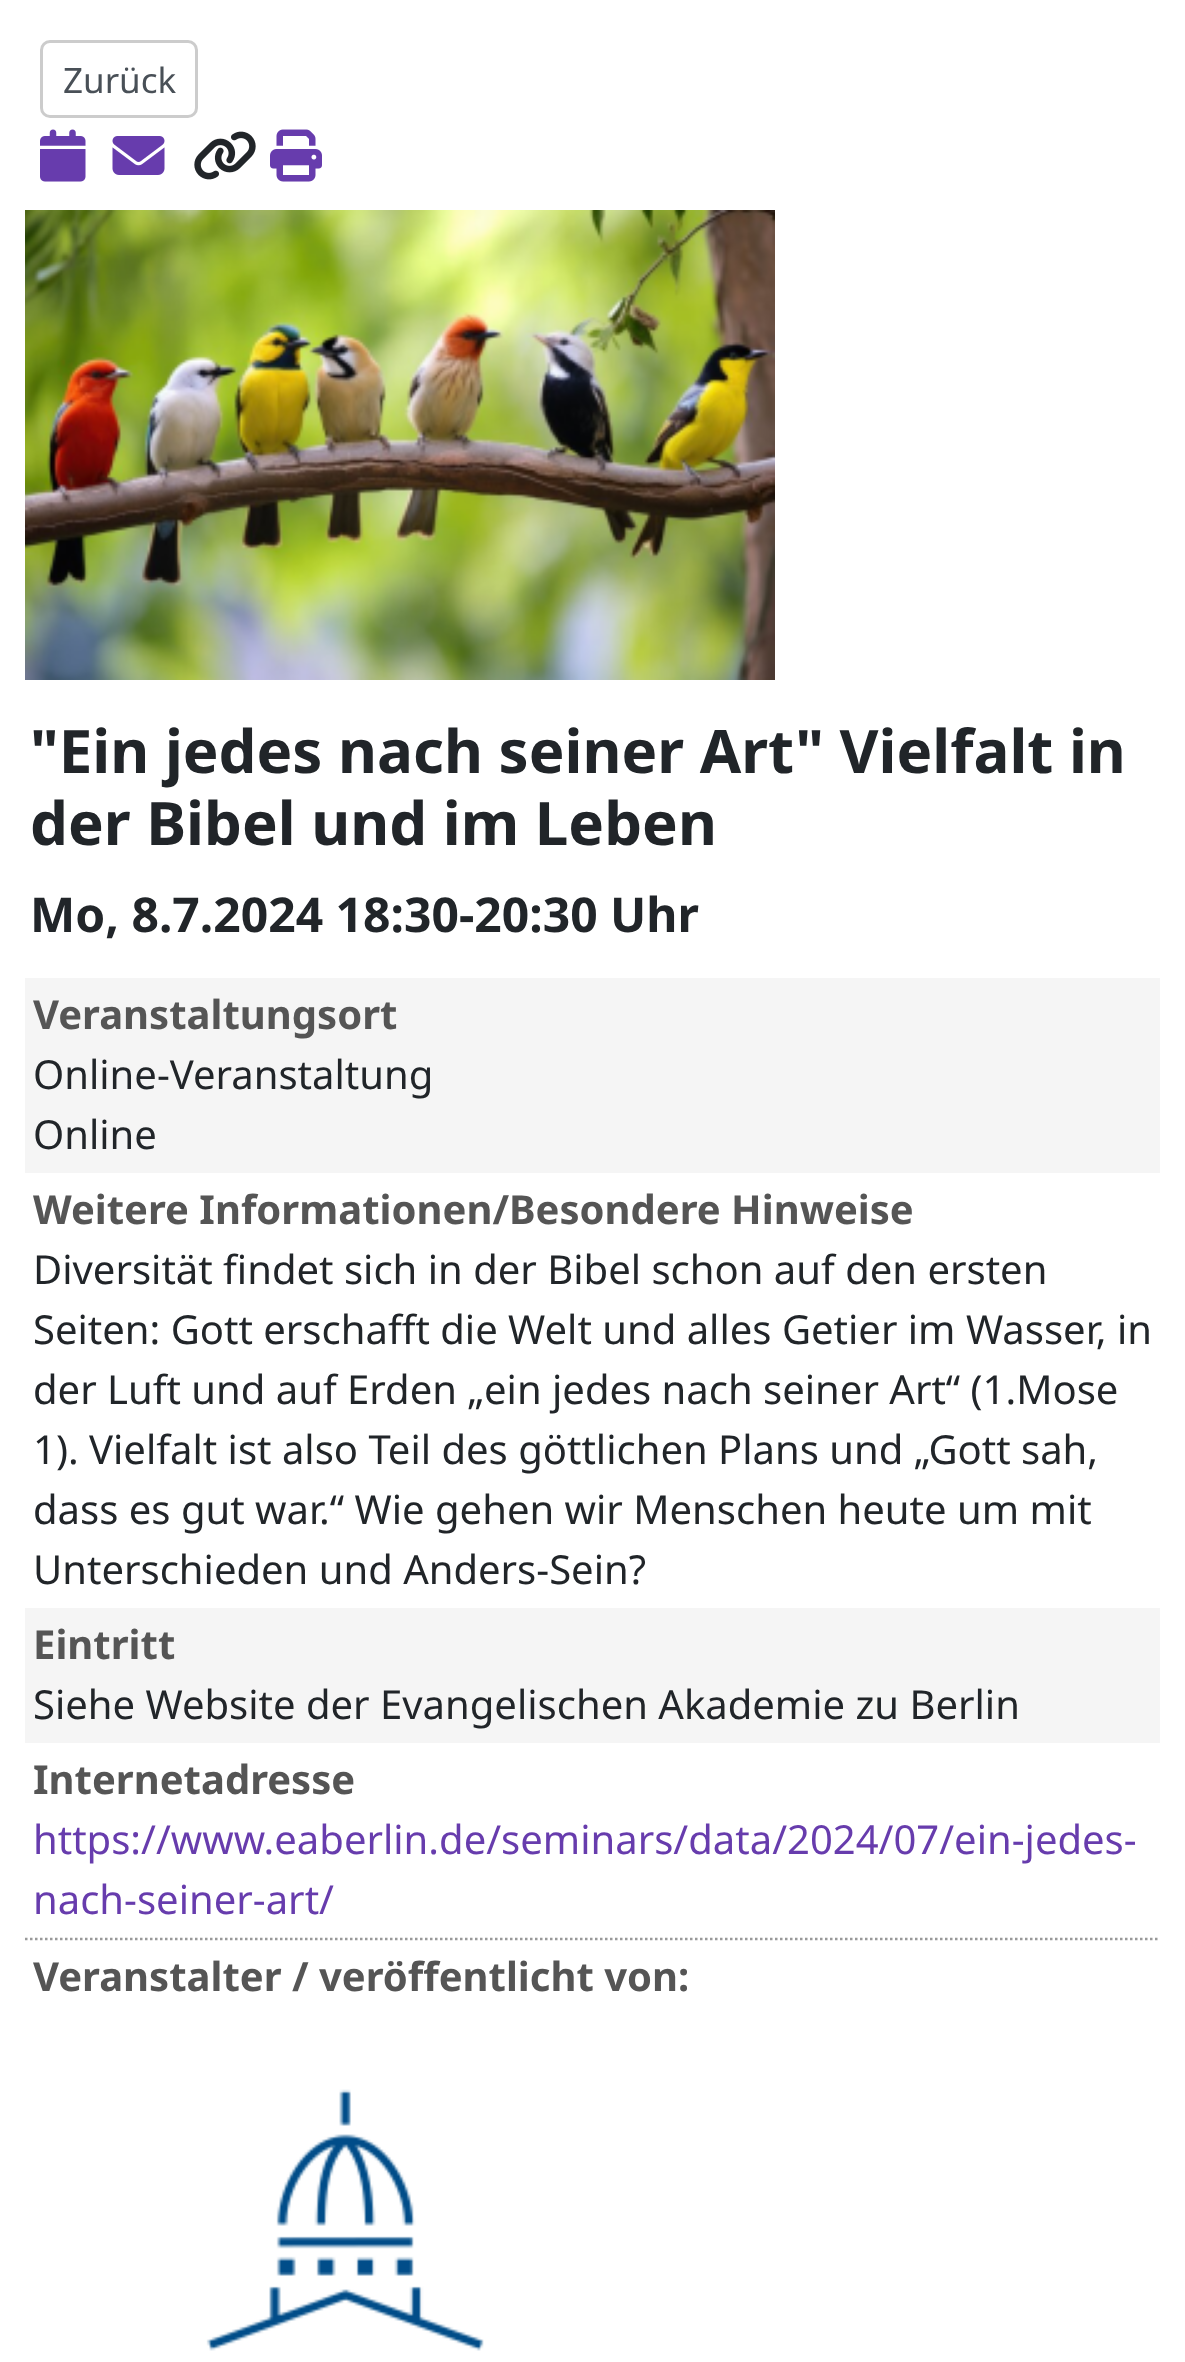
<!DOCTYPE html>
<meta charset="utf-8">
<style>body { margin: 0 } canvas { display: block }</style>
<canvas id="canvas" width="1185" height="2362"></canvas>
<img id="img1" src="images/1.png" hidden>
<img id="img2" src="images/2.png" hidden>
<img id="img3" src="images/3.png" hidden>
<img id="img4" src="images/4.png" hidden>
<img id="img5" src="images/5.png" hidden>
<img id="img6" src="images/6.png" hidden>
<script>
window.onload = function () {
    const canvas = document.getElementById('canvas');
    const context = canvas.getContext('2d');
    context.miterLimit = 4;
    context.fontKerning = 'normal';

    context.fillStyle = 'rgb(255, 255, 255)';
    context.fillRect(0, 0, 1185, 2362);
    context.beginPath();
    context.roundRect(41.5, 41.5, 155, 75, 8.5);
    context.strokeStyle = 'rgb(204, 204, 204)';
    context.lineWidth = 3;
    context.stroke();
    context.drawImage(document.getElementById('img1'), 40, 129, 46, 53);
    context.drawImage(document.getElementById('img2'), 112, 136, 53, 39);
    context.drawImage(document.getElementById('img3'), 194, 131, 62, 49);
    context.drawImage(document.getElementById('img4'), 270, 129, 52, 53);
    context.drawImage(document.getElementById('img5'), 25, 210, 750, 470);
    context.fillStyle = 'rgb(245, 245, 245)';
    context.fillRect(25, 978, 1135, 195);
    context.fillRect(25, 1608, 1135, 135);
    context.beginPath();
    context.moveTo(25, 1939);
    context.lineTo(1160, 1939);
    context.strokeStyle = 'rgb(153, 153, 153)';
    context.lineWidth = 2.5;
    context.setLineDash([2.5, 2.5]);
    context.stroke();
    context.drawImage(document.getElementById('img6'), 206, 2089, 278, 262);
    context.font = '35px Noto Sans';
    context.fillStyle = 'rgb(73, 80, 87)';
    context.fillText('Zurück', 63, 93);
    context.font = 'bold 60px Noto Sans';
    context.fillStyle = 'rgb(33, 37, 41)';
    context.fillText('"Ein jedes nach seiner Art" Vielfalt in', 30, 773);
    context.fillText('der Bibel und im Leben', 30, 845);
    context.font = 'bold 48px Noto Sans';
    context.fillText('Mo, 8.7.2024 18:30-20:30 Uhr', 30, 932);
    context.font = 'bold 40px Noto Sans';
    context.fillStyle = 'rgb(85, 85, 85)';
    context.fillText('Veranstaltungsort', 33, 1029);
    context.font = '40px Noto Sans';
    context.fillStyle = 'rgb(33, 37, 41)';
    context.fillText('Online-Veranstaltung', 33, 1089);
    context.fillText('Online', 33, 1149);
    context.font = 'bold 40px Noto Sans';
    context.fillStyle = 'rgb(85, 85, 85)';
    context.fillText('Weitere Informationen/Besondere Hinweise', 33, 1224);
    context.font = '40px Noto Sans';
    context.fillStyle = 'rgb(33, 37, 41)';
    context.fillText('Diversität findet sich in der Bibel schon auf den ersten', 33, 1284);
    context.fillText('Seiten: Gott erschafft die Welt und alles Getier im Wasser, in', 33, 1344);
    context.fillText('der Luft und auf Erden „ein jedes nach seiner Art“ (1.Mose', 33, 1404);
    context.fillText('1). Vielfalt ist also Teil des göttlichen Plans und „Gott sah,', 33, 1464);
    context.fillText('dass es gut war.“ Wie gehen wir Menschen heute um mit', 33, 1524);
    context.fillText('Unterschieden und Anders-Sein?', 33, 1584);
    context.font = 'bold 40px Noto Sans';
    context.fillStyle = 'rgb(85, 85, 85)';
    context.fillText('Eintritt', 33, 1659);
    context.font = '40px Noto Sans';
    context.fillStyle = 'rgb(33, 37, 41)';
    context.fillText('Siehe Website der Evangelischen Akademie zu Berlin', 33, 1719);
    context.font = 'bold 40px Noto Sans';
    context.fillStyle = 'rgb(85, 85, 85)';
    context.fillText('Internetadresse', 33, 1794);
    context.font = '40px Noto Sans';
    context.fillStyle = 'rgb(103, 60, 173)';
    context.fillText('https://www.eaberlin.de/seminars/data/2024/07/ein-jedes-', 33, 1854);
    context.fillText('nach-seiner-art/', 33, 1914);
    context.font = 'bold 40px Noto Sans';
    context.fillStyle = 'rgb(85, 85, 85)';
    context.fillText('Veranstalter / veröffentlicht von:', 33, 1991);
};
</script>
